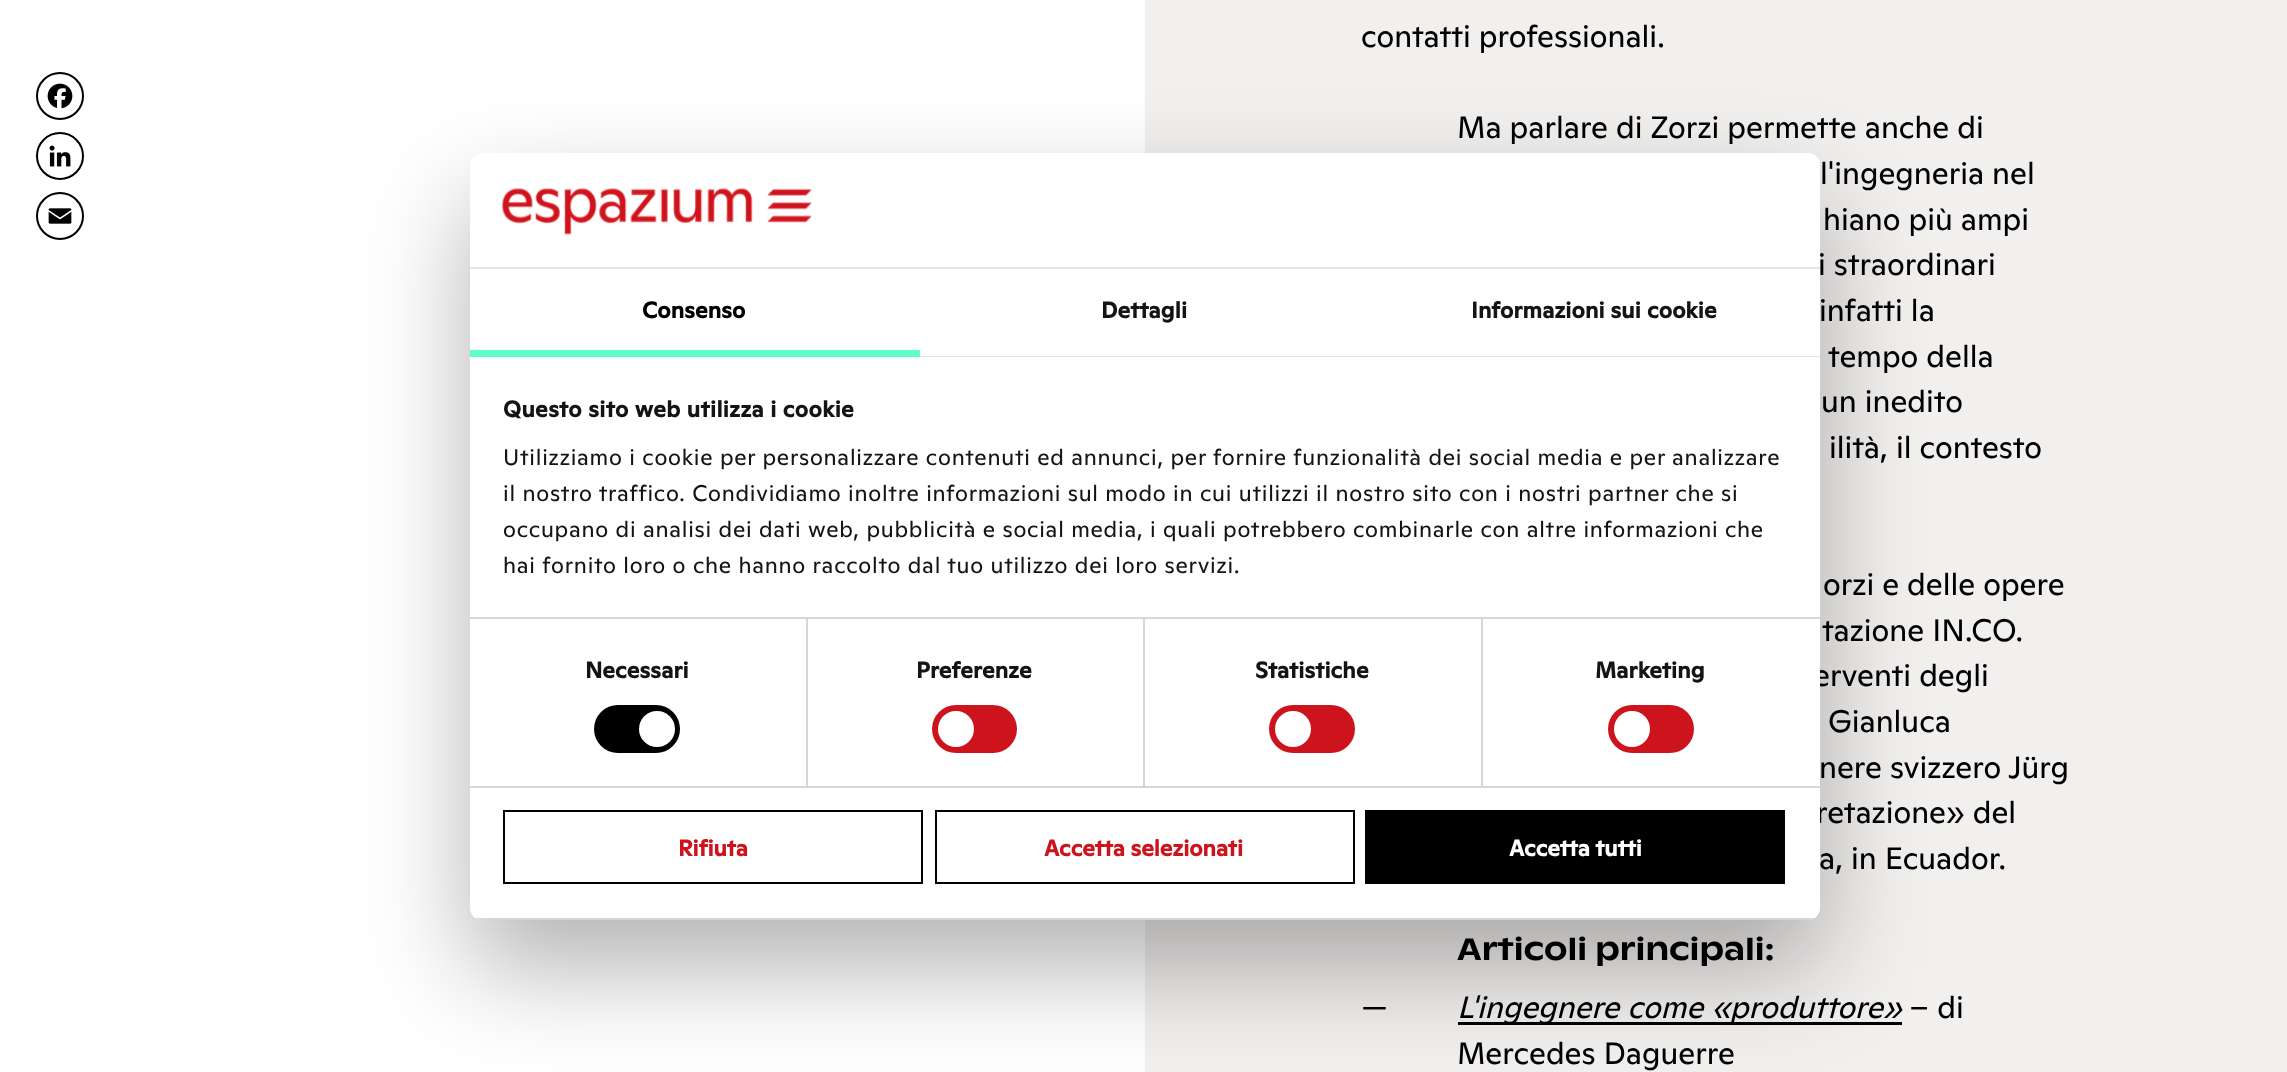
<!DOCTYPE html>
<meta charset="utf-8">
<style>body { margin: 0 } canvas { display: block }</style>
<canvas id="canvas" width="2287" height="1072"></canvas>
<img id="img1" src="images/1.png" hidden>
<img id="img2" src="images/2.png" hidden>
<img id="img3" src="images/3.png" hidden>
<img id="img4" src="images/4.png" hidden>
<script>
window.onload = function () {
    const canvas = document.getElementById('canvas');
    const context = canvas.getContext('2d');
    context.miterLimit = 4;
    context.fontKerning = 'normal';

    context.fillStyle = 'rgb(242, 240, 239)';
    context.fillRect(0, 0, 2287, 1072);
    context.fillStyle = 'rgb(255, 255, 255)';
    context.fillRect(0, 0, 1145, 1072);
    context.fillStyle = 'rgb(0, 0, 0)';
    context.fillRect(1458, 1022, 444, 3);
    context.beginPath();
    context.arc(60, 96, 23, 0, 2 * Math.PI);
    context.strokeStyle = 'rgb(0, 0, 0)';
    context.lineWidth = 2;
    context.stroke();
    context.drawImage(document.getElementById('img1'), 47, 83, 26, 26);
    context.beginPath();
    context.arc(60, 156, 23, 0, 2 * Math.PI);
    context.stroke();
    context.drawImage(document.getElementById('img2'), 49, 145, 22, 22);
    context.beginPath();
    context.arc(60, 216, 23, 0, 2 * Math.PI);
    context.stroke();
    context.drawImage(document.getElementById('img3'), 48, 208, 24, 16);
    context.fillStyle = 'rgba(0, 0, 0, 0.3)';
    context.filter = 'blur(51px)';
    context.beginPath();
    context.roundRect(470, 201, 1350, 767, 12);
    context.fill();
    context.filter = 'none';
    context.font = '30.9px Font';
    context.fillStyle = 'rgb(0, 0, 0)';
    context.fillText('contatti professionali.', 1361, 47);
    context.fillText('Ma parlare di Zorzi permette anche di', 1457, 138);
    context.fillText('l\'ingegneria nel', 1820, 184);
    context.fillText('hiano più ampi', 1823, 230);
    context.fillText('i straordinari', 1818, 275);
    context.fillText('infatti la', 1819, 321);
    context.fillText('tempo della', 1828, 367);
    context.fillText('un inedito', 1821, 412);
    context.fillText('ilità, il contesto', 1829, 458);
    context.fillText('orzi e delle opere', 1823, 595);
    context.fillText('tazione IN.CO.', 1822, 641);
    context.fillText('erventi degli', 1813, 686);
    context.fillText('Gianluca', 1828, 732);
    context.fillText('nere svizzero Jürg', 1819, 778);
    context.fillText('retazione» del', 1816, 823);
    context.fillText('a, in Ecuador.', 1819, 869);
    context.font = '500 30.9px Font';
    context.fillText('Articoli principali:', 1457, 960);
    context.font = '30.9px Font';
    context.fillText('—', 1361, 1018);
    context.font = 'italic 30.9px Font';
    context.fillText('L\'ingegnere come «produttore»', 1457, 1018);
    context.font = '30.9px Font';
    context.fillText('– di', 1909, 1018);
    context.fillText('Mercedes Daguerre', 1457, 1064);
    context.fillStyle = 'rgb(255, 255, 255)';
    context.beginPath();
    context.roundRect(470, 153, 1350, 767, 12);
    context.fill();
    context.fillStyle = 'rgb(224, 230, 228)';
    context.fillRect(470, 267, 1350, 2);
    context.drawImage(document.getElementById('img4'), 502, 188, 310, 47);
    context.fillStyle = 'rgb(93, 255, 199)';
    context.fillRect(470, 350, 450, 7);
    context.letterSpacing = '0.15px';
    context.font = 'bold 22.5px Font';
    context.fillStyle = 'rgb(0, 0, 0)';
    context.fillText('Consenso', 642, 318);
    context.fillStyle = 'rgb(224, 230, 228)';
    context.fillRect(920, 356, 900, 1);
    context.fillStyle = 'rgb(20, 20, 20)';
    context.fillText('Dettagli', 1101, 318);
    context.fillText('Informazioni sui cookie', 1471, 318);
    context.letterSpacing = '0.4px';
    context.fillText('Questo sito web utilizza i cookie', 503, 417);
    context.letterSpacing = '0.75px';
    context.font = '22.5px Font';
    context.fillText('Utilizziamo i cookie per personalizzare contenuti ed annunci, per fornire funzionalità dei social media e per analizzare', 503, 465);
    context.fillText('il nostro traffico. Condividiamo inoltre informazioni sul modo in cui utilizzi il nostro sito con i nostri partner che si', 503, 501);
    context.fillText('occupano di analisi dei dati web, pubblicità e social media, i quali potrebbero combinarle con altre informazioni che', 503, 537);
    context.fillText('hai fornito loro o che hanno raccolto dal tuo utilizzo dei loro servizi.', 503, 573);
    context.fillStyle = 'rgb(214, 214, 214)';
    context.fillRect(470, 786, 1350, 2);
    context.fillRect(806, 618, 2, 168);
    context.letterSpacing = '0.15px';
    context.font = 'bold 22.5px Font';
    context.fillStyle = 'rgb(20, 20, 20)';
    context.fillText('Necessari', 585, 678);
    context.fillStyle = 'rgb(0, 0, 0)';
    context.beginPath();
    context.roundRect(594, 705, 86, 48, 24);
    context.fill();
    context.fillStyle = 'rgb(255, 255, 255)';
    context.beginPath();
    context.arc(657, 729, 18, 0, 2 * Math.PI);
    context.fill();
    context.fillStyle = 'rgb(214, 214, 214)';
    context.fillRect(1143, 618, 2, 168);
    context.fillStyle = 'rgb(20, 20, 20)';
    context.fillText('Preferenze', 916, 678);
    context.fillStyle = 'rgb(205, 20, 29)';
    context.beginPath();
    context.roundRect(932, 705, 85, 48, 24);
    context.fill();
    context.fillStyle = 'rgb(255, 255, 255)';
    context.beginPath();
    context.arc(956, 729, 18, 0, 2 * Math.PI);
    context.fill();
    context.fillStyle = 'rgb(214, 214, 214)';
    context.fillRect(1481, 618, 2, 168);
    context.fillRect(470, 617, 1350, 2);
    context.fillStyle = 'rgb(20, 20, 20)';
    context.fillText('Statistiche', 1255, 678);
    context.fillStyle = 'rgb(205, 20, 29)';
    context.beginPath();
    context.roundRect(1269, 705, 86, 48, 24);
    context.fill();
    context.fillStyle = 'rgb(255, 255, 255)';
    context.beginPath();
    context.arc(1293, 729, 18, 0, 2 * Math.PI);
    context.fill();
    context.fillStyle = 'rgb(20, 20, 20)';
    context.fillText('Marketing', 1595, 678);
    context.fillStyle = 'rgb(205, 20, 29)';
    context.beginPath();
    context.roundRect(1608, 705, 86, 48, 24);
    context.fill();
    context.fillStyle = 'rgb(255, 255, 255)';
    context.beginPath();
    context.arc(1632, 729, 18, 0, 2 * Math.PI);
    context.fill();
    context.save();
    context.beginPath();
    context.roundRect(470, 153, 1350, 767, 12);
    context.clip();
    context.fillStyle = 'rgb(214, 214, 214)';
    context.fillRect(470, 918, 1350, 2);
    context.restore();
    context.strokeRect(504, 811, 418, 72);
    context.letterSpacing = '0px';
    context.fillStyle = 'rgb(205, 20, 29)';
    context.fillText('Rifiuta', 678, 856);
    context.strokeRect(936, 811, 418, 72);
    context.fillText('Accetta selezionati', 1044, 856);
    context.fillStyle = 'rgb(0, 0, 0)';
    context.fillRect(1365, 810, 420, 74);
    context.fillStyle = 'rgb(255, 255, 255)';
    context.fillText('Accetta tutti', 1509, 856);
};
</script>
